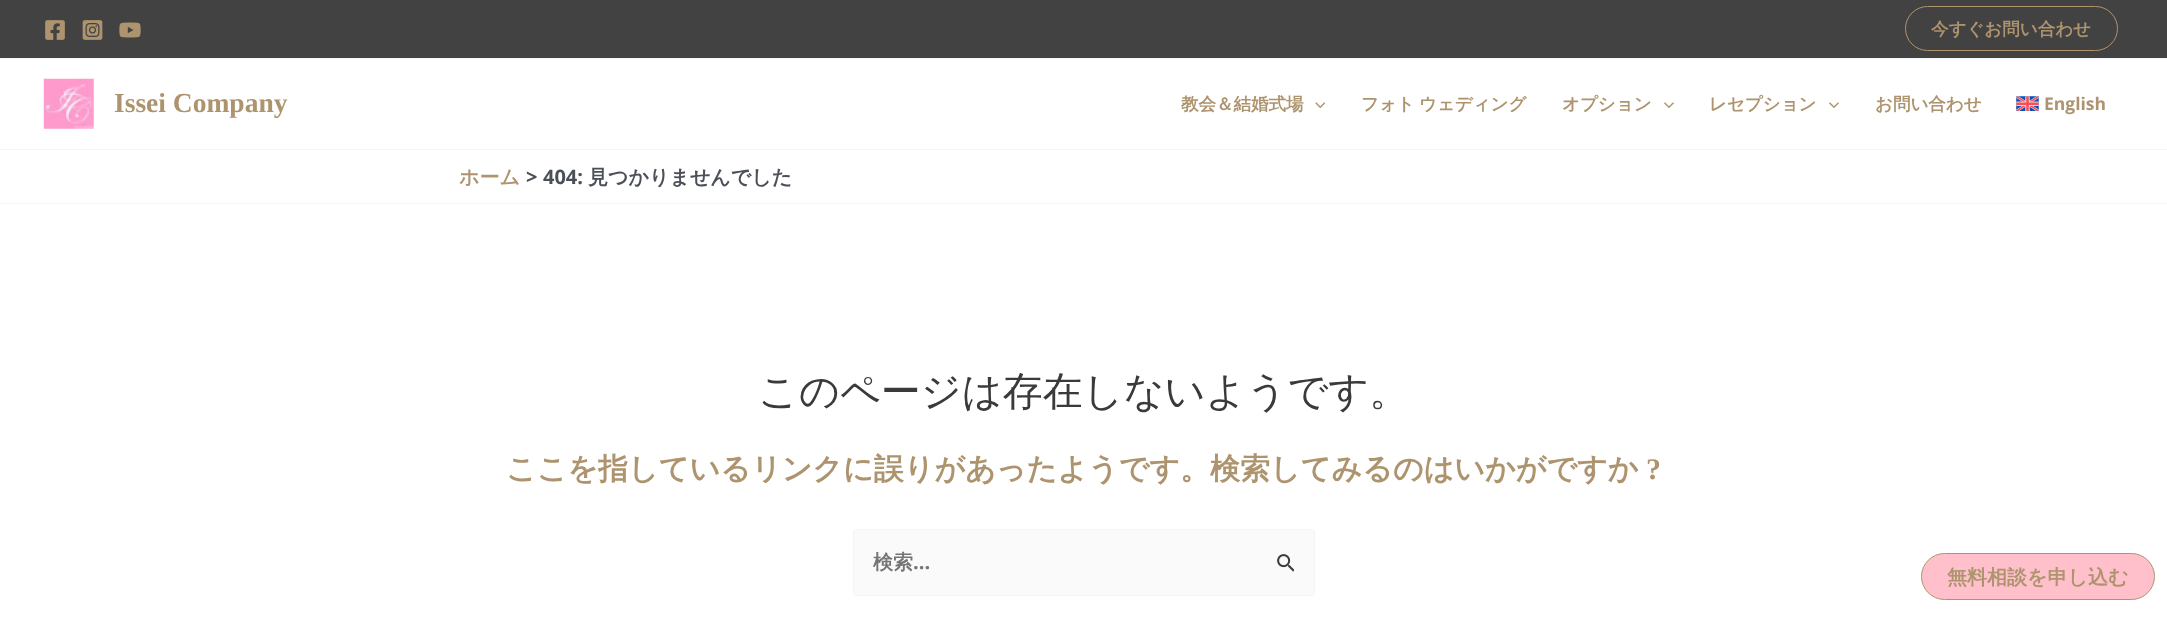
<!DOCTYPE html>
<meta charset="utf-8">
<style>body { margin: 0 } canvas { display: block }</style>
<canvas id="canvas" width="2167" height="624"></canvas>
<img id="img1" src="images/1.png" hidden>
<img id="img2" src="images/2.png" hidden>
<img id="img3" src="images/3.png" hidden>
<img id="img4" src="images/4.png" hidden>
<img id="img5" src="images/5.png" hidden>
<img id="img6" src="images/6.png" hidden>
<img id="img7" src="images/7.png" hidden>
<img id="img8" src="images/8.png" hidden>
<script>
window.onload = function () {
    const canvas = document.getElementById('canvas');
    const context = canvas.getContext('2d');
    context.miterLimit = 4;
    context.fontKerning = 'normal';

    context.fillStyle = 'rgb(255, 255, 255)';
    context.fillRect(0, 0, 2167, 624);
    context.fillStyle = 'rgb(66, 66, 66)';
    context.fillRect(0, 0, 2167, 58);
    context.fillStyle = 'rgb(242, 245, 247)';
    context.fillRect(0, 58, 2167, 1);
    context.drawImage(document.getElementById('img1'), 45, 20, 20, 20);
    context.drawImage(document.getElementById('img2'), 82, 20, 21, 20);
    context.drawImage(document.getElementById('img3'), 119, 22, 22, 16);
    context.beginPath();
    context.roundRect(1905.5, 6.5, 212, 44, 22);
    context.strokeStyle = 'rgb(173, 148, 110)';
    context.stroke();
    context.fillRect(0, 149, 2167, 1);
    context.drawImage(document.getElementById('img4'), 43, 78, 51, 51);
    context.drawImage(document.getElementById('img5'), 1315, 102, 11, 7);
    context.drawImage(document.getElementById('img6'), 1664, 102, 10, 7);
    context.drawImage(document.getElementById('img6'), 1829, 102, 10, 7);
    context.drawImage(document.getElementById('img7'), 2016, 96, 23, 15);
    context.fillRect(0, 203, 2167, 1);
    context.fillStyle = 'rgb(250, 250, 250)';
    context.beginPath();
    context.roundRect(853.5, 529.5, 461, 66, 2);
    context.fill();
    context.strokeStyle = 'rgb(242, 245, 247)';
    context.stroke();
    context.drawImage(document.getElementById('img8'), 1277, 554, 17, 18);
    context.fillStyle = 'rgb(255, 192, 203)';
    context.beginPath();
    context.roundRect(1921.5, 553.5, 233, 46, 23);
    context.fill();
    context.strokeStyle = 'rgb(173, 148, 110)';
    context.stroke();
    context.font = 'bold 17.5px WenQuanYi Zen Hei';
    context.fillStyle = 'rgb(173, 148, 110)';
    context.fillText('今すぐお問い合わせ', 1931, 35);
    context.font = 'bold 27.5px Liberation Serif';
    context.fillText('Issei Company', 114, 112);
    context.font = 'bold 17.5px WenQuanYi Zen Hei';
    context.fillText('教会＆結婚式場', 1181, 110);
    context.wordSpacing = '-1px';
    context.fillText('フォト ウェディング', 1361, 110);
    context.wordSpacing = '0px';
    context.fillText('オプション', 1562, 110);
    context.fillText('レセプション', 1709, 110);
    context.fillText('お問い合わせ', 1875, 110);
    context.font = 'bold 17.5px Open Sans';
    context.fillText('English', 2044, 110);
    context.font = 'bold 20px WenQuanYi Zen Hei';
    context.fillText('ホーム', 459, 184);
    context.font = 'bold 20px Open Sans';
    context.fillStyle = 'rgb(75, 79, 88)';
    context.fillText('>', 526, 184);
    context.fillText('404:', 543, 184);
    context.font = 'bold 20px WenQuanYi Zen Hei';
    context.fillText('見つかりませんでした', 588, 184);
    context.font = '500 40px WenQuanYi Zen Hei';
    context.fillStyle = 'rgb(58, 58, 58)';
    context.fillText('このページは存在しないようです。', 758, 405);
    context.font = 'bold 30px WenQuanYi Zen Hei';
    context.fillStyle = 'rgb(173, 148, 110)';
    context.fillText('ここを指しているリンクに誤りがあったようです。検索してみるのはいかがですか', 506, 479);
    context.font = 'bold 30px Liberation Serif';
    context.fillText('?', 1646, 479);
    context.font = 'bold 20px WenQuanYi Zen Hei';
    context.fillStyle = 'rgb(117, 117, 117)';
    context.fillText('検索', 873, 569);
    context.font = 'bold 20px Open Sans';
    context.fillText('...', 913, 569);
    context.font = 'bold 20px WenQuanYi Zen Hei';
    context.fillStyle = 'rgb(173, 148, 110)';
    context.fillText('無料相談を申し込む', 1947, 584);
};
</script>
